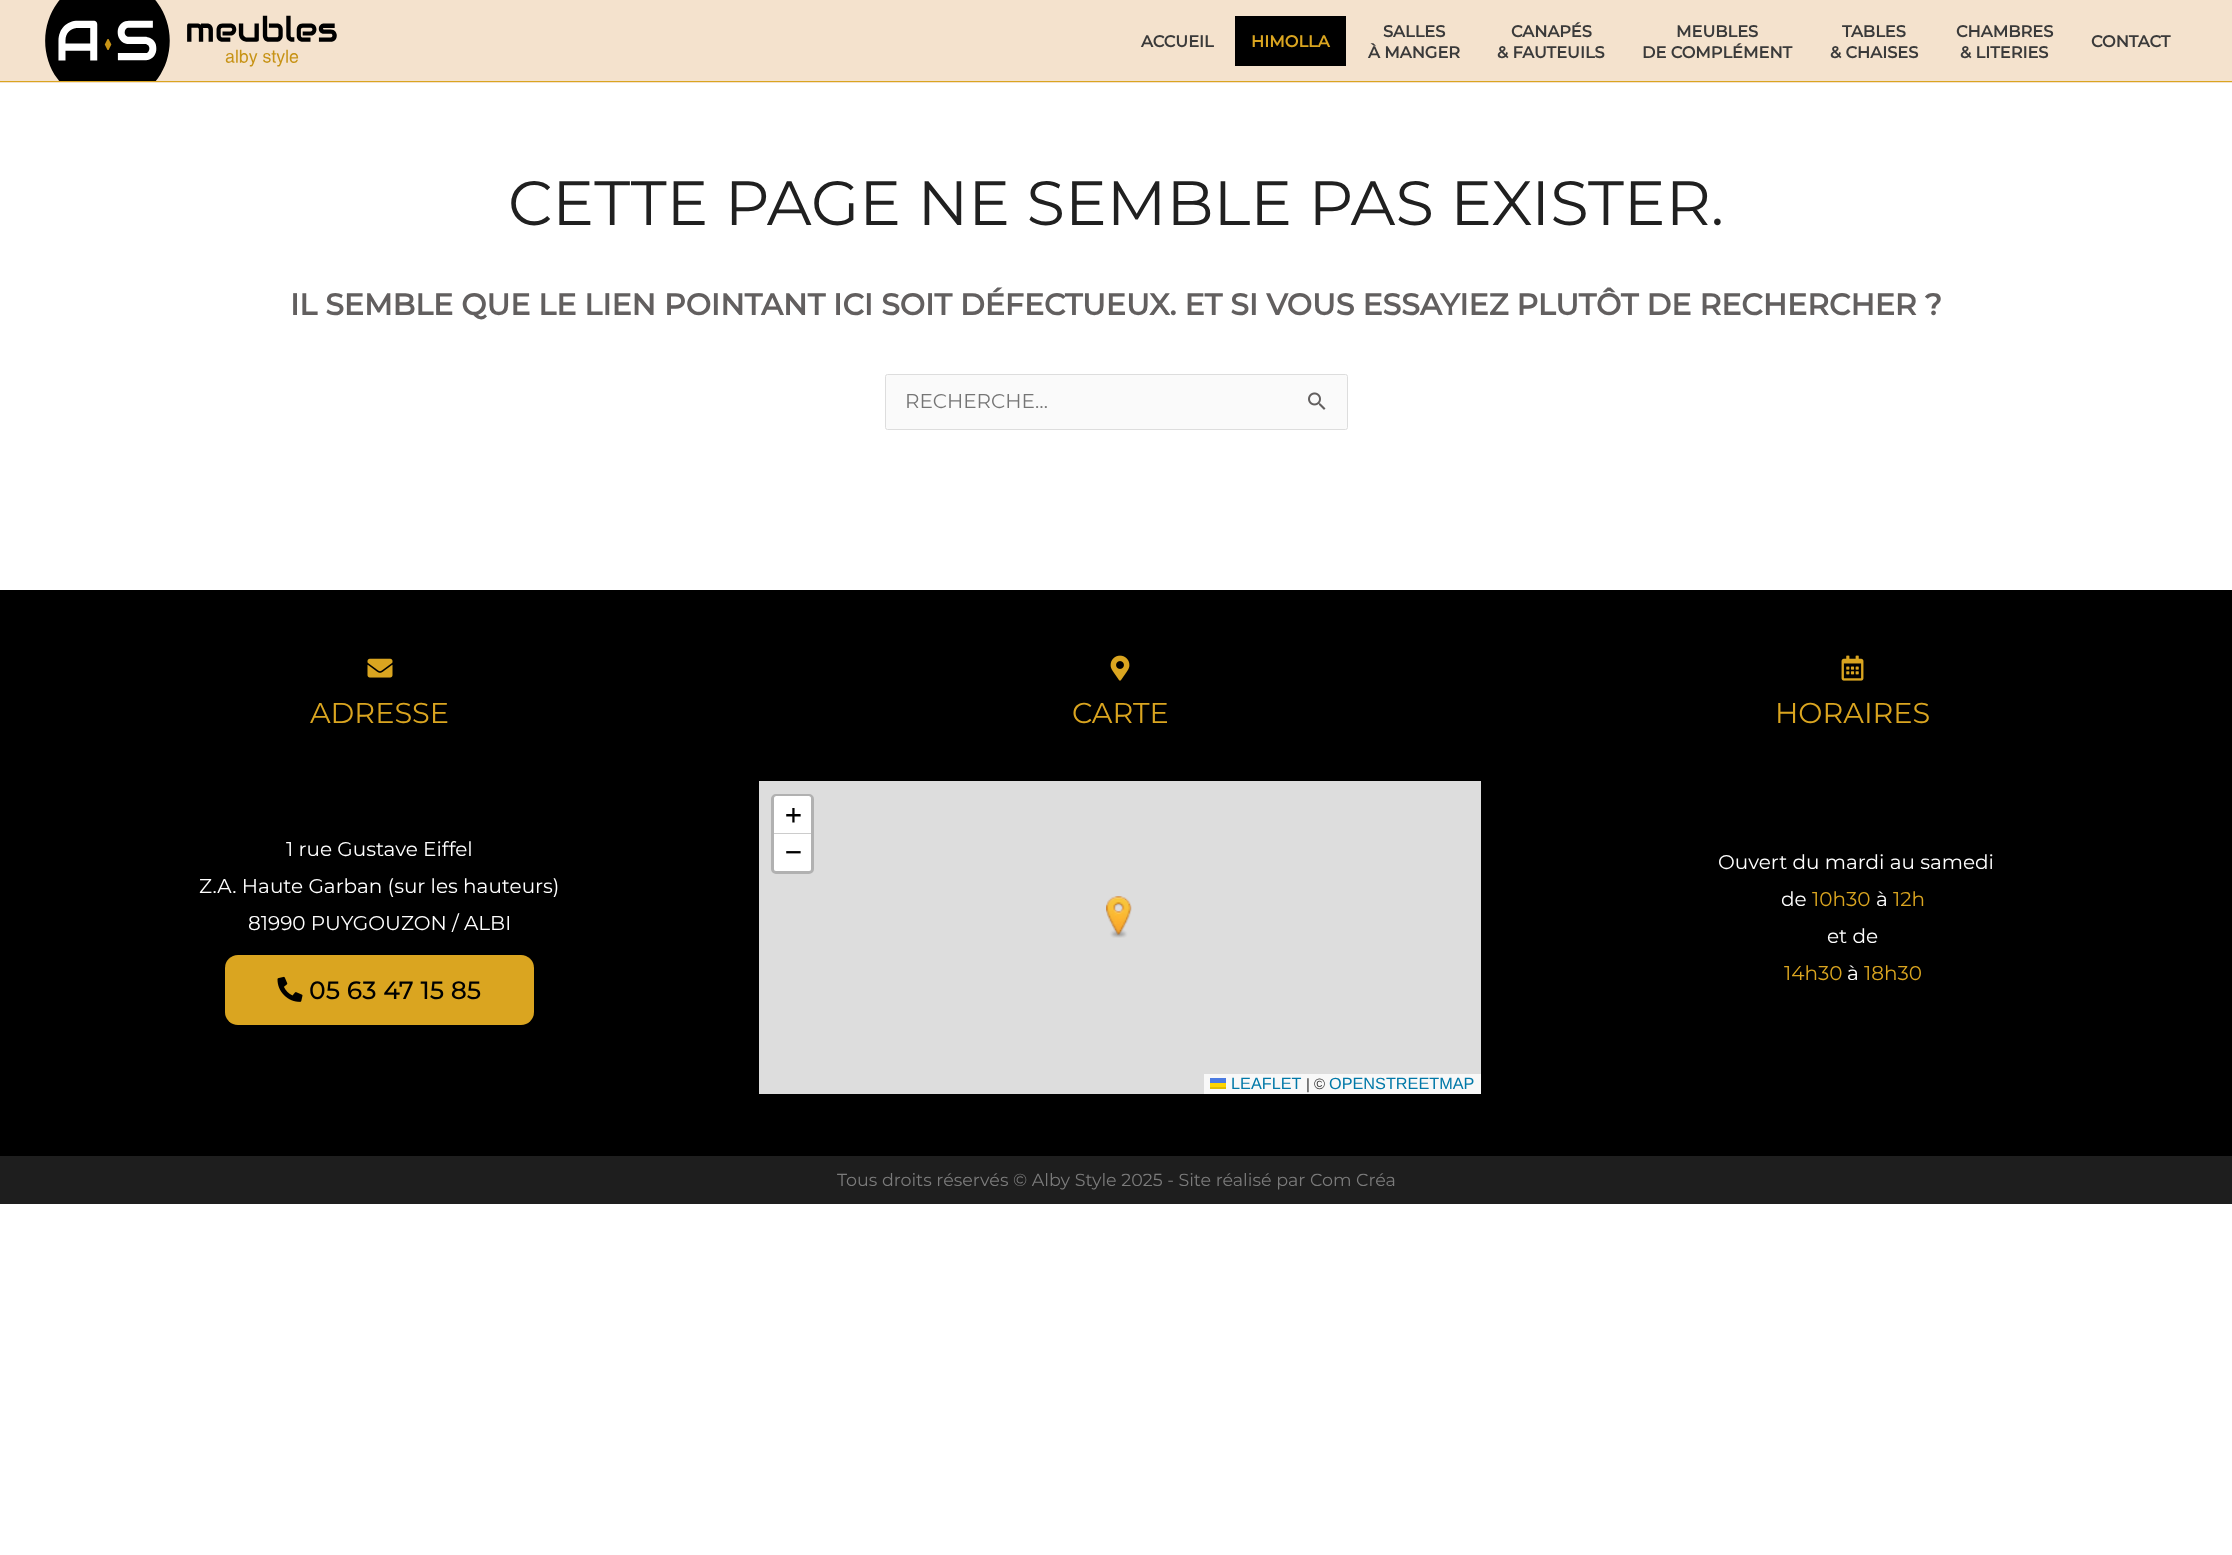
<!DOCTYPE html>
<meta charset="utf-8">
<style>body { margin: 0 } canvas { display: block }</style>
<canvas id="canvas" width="2232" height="1555"></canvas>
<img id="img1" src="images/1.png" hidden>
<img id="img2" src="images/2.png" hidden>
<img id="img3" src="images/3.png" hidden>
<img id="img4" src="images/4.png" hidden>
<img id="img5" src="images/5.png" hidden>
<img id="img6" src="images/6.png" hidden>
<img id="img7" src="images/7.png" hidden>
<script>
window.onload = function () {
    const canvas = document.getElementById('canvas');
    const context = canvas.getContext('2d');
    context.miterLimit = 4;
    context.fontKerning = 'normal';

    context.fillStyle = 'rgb(255, 255, 255)';
    context.fillRect(0, 0, 2232, 1555);
    context.fillStyle = 'rgb(244, 226, 205)';
    context.fillRect(0, 0, 2232, 83);
    context.fillStyle = 'rgb(218, 165, 32)';
    context.fillRect(0, 81, 2232, 1);
    context.drawImage(document.getElementById('img1'), 45, 0, 292, 81);
    context.fillStyle = 'rgb(0, 0, 0)';
    context.fillRect(1235, 16, 111, 50);
    context.fillStyle = 'rgb(250, 250, 250)';
    context.beginPath();
    context.roundRect(885.5, 374.5, 462, 55, 2);
    context.fill();
    context.strokeStyle = 'rgb(221, 221, 221)';
    context.stroke();
    context.drawImage(document.getElementById('img2'), 1308, 392, 18, 18);
    context.fillStyle = 'rgb(0, 0, 0)';
    context.fillRect(0, 590, 2232, 566);
    context.drawImage(document.getElementById('img3'), 367, 658, 26, 20);
    context.fillStyle = 'rgb(218, 165, 32)';
    context.beginPath();
    context.roundRect(225, 955, 309, 70, 13);
    context.fill();
    context.drawImage(document.getElementById('img4'), 277, 976, 26, 26);
    context.drawImage(document.getElementById('img5'), 1110, 655, 20, 26);
    context.fillStyle = 'rgb(221, 221, 221)';
    context.fillRect(759, 781, 722, 313);
    context.beginPath();
    context.roundRect(772.5, 795.5, 40, 77, 3.5);
    context.strokeStyle = 'rgb(177, 177, 177)';
    context.lineWidth = 3;
    context.stroke();
    context.fillStyle = 'rgb(255, 255, 255)';
    context.beginPath();
    context.roundRect(774, 796, 37, 38, [2.5, 2.5, 0, 0]);
    context.fill();
    context.fillStyle = 'rgb(204, 204, 204)';
    context.fillRect(774, 833, 37, 1);
    context.fillStyle = 'rgb(255, 255, 255)';
    context.beginPath();
    context.roundRect(774, 834, 37, 37, [0, 0, 2.5, 2.5]);
    context.fill();
    context.fillStyle = 'rgb(248, 248, 248)';
    context.fillRect(1204, 1074, 277, 20);
    context.fillStyle = 'rgb(76, 123, 225)';
    context.fillRect(1210, 1078, 16, 5);
    context.fillStyle = 'rgb(255, 213, 0)';
    context.fillRect(1210, 1083, 16, 4);
    context.fillStyle = 'rgb(224, 188, 0)';
    context.fillRect(1210, 1087, 16, 2);
    context.drawImage(document.getElementById('img6'), 1106, 896, 26, 42);
    context.drawImage(document.getElementById('img7'), 1841, 655, 23, 26);
    context.fillStyle = 'rgb(30, 30, 30)';
    context.fillRect(0, 1156, 2232, 48);
    context.font = 'bold 16.25px Montserrat';
    context.fillStyle = 'rgb(58, 58, 58)';
    context.fillText('ACCUEIL', 1141, 47);
    context.fillStyle = 'rgb(218, 165, 32)';
    context.fillText('HIMOLLA', 1251, 47);
    context.fillStyle = 'rgb(58, 58, 58)';
    context.fillText('SALLES', 1383, 37);
    context.fillText('À MANGER', 1368, 58);
    context.fillText('CANAPÉS', 1511, 37);
    context.fillText('& FAUTEUILS', 1497, 58);
    context.fillText('MEUBLES', 1676, 37);
    context.fillText('DE COMPLÉMENT', 1642, 58);
    context.fillText('TABLES', 1842, 37);
    context.fillText('& CHAISES', 1830, 58);
    context.fillText('CHAMBRES', 1956, 37);
    context.fillText('& LITERIES', 1960, 58);
    context.fillText('CONTACT', 2091, 47);
    context.font = '62.5px Montserrat';
    context.fillStyle = 'rgb(32, 32, 32)';
    context.fillText('CETTE PAGE NE SEMBLE PAS EXISTER.', 508, 225);
    context.font = 'bold 30px Montserrat';
    context.fillStyle = 'rgb(98, 95, 95)';
    context.fillText('IL SEMBLE QUE LE LIEN POINTANT ICI SOIT DÉFECTUEUX. ET SI VOUS ESSAYIEZ PLUTÔT DE RECHERCHER ?', 290, 315);
    context.font = '20px Montserrat';
    context.fillStyle = 'rgb(117, 117, 117)';
    context.fillText('RECHERCHE…', 905, 408);
    context.font = '28.75px Montserrat';
    context.fillStyle = 'rgb(218, 165, 32)';
    context.fillText('ADRESSE', 310, 723);
    context.font = '20px Montserrat';
    context.fillStyle = 'rgb(255, 255, 255)';
    context.fillText('1 rue Gustave Eiffel', 286, 856);
    context.fillText('Z.A. Haute Garban (sur les hauteurs)', 199, 893);
    context.fillText('81990 PUYGOUZON / ALBI', 248, 930);
    context.font = '500 25px Montserrat';
    context.fillStyle = 'rgb(0, 0, 0)';
    context.fillText('05 63 47 15 85', 309, 999);
    context.font = '28.75px Montserrat';
    context.fillStyle = 'rgb(218, 165, 32)';
    context.fillText('CARTE', 1072, 723);
    context.font = '28px DejaVu Sans Mono';
    context.fillStyle = 'rgb(0, 0, 0)';
    context.fillText('+', 785, 824);
    context.fillText('−', 785, 861);
    context.font = '16.25px Liberation Sans';
    context.fillStyle = 'rgb(0, 120, 168)';
    context.fillText('LEAFLET', 1231, 1089);
    context.font = '15px Liberation Sans';
    context.fillStyle = 'rgb(51, 51, 51)';
    context.fillText('| ©', 1306, 1089);
    context.font = '16.25px Liberation Sans';
    context.fillStyle = 'rgb(0, 120, 168)';
    context.fillText('OPENSTREETMAP', 1329, 1089);
    context.font = '28.75px Montserrat';
    context.fillStyle = 'rgb(218, 165, 32)';
    context.fillText('HORAIRES', 1775, 723);
    context.font = '20px Montserrat';
    context.fillStyle = 'rgb(255, 255, 255)';
    context.fillText('Ouvert du mardi au samedi', 1718, 869);
    context.fillText('de', 1781, 906);
    context.fillStyle = 'rgb(218, 165, 32)';
    context.fillText('10h30', 1812, 906);
    context.fillStyle = 'rgb(255, 255, 255)';
    context.fillText('à', 1876, 906);
    context.fillStyle = 'rgb(218, 165, 32)';
    context.fillText('12h', 1893, 906);
    context.fillStyle = 'rgb(255, 255, 255)';
    context.fillText('et de', 1827, 943);
    context.fillStyle = 'rgb(218, 165, 32)';
    context.fillText('14h30', 1784, 980);
    context.fillStyle = 'rgb(255, 255, 255)';
    context.fillText('à', 1847, 980);
    context.fillStyle = 'rgb(218, 165, 32)';
    context.fillText('18h30', 1864, 980);
    context.font = '17.5px Montserrat';
    context.fillStyle = 'rgb(123, 123, 123)';
    context.fillText('Tous droits réservés © Alby Style 2025 - Site réalisé par Com Créa', 837, 1186);
};
</script>
